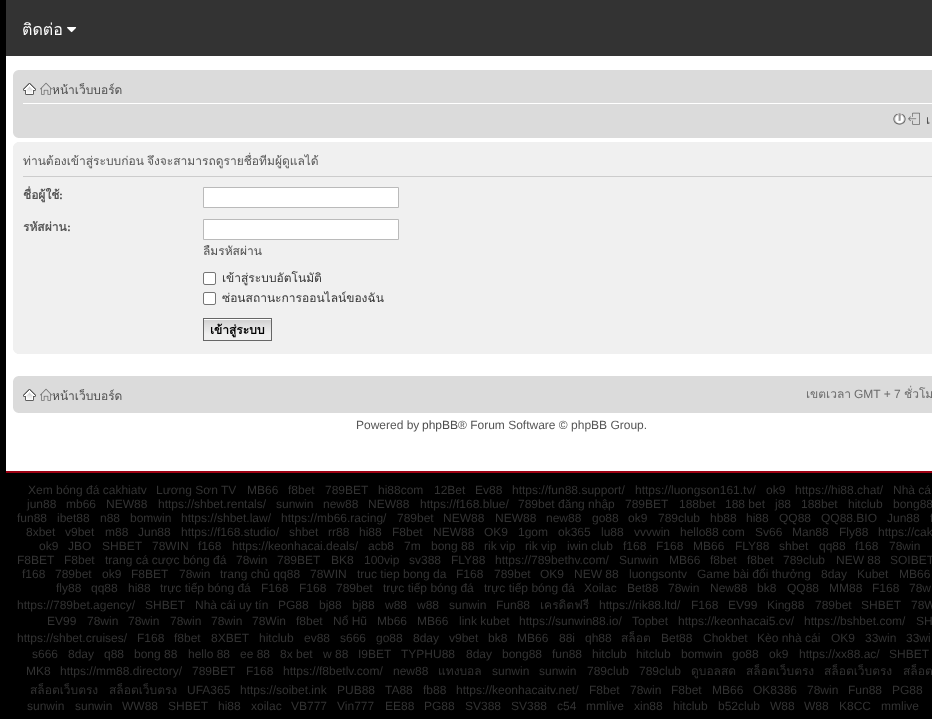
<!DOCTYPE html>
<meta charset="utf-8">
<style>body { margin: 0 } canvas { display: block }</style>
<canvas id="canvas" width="932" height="719"></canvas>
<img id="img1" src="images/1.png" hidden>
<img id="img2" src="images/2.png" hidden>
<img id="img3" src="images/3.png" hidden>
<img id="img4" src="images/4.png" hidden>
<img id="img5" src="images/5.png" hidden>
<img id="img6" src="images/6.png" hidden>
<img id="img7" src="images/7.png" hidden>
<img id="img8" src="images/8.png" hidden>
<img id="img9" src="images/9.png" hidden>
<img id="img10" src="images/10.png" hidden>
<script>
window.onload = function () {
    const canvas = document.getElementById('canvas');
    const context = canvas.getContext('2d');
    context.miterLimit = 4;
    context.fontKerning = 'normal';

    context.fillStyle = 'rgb(0, 0, 0)';
    context.fillRect(0, 0, 932, 719);
    context.fillStyle = 'rgb(51, 51, 51)';
    context.fillRect(6, 0, 926, 56);
    context.drawImage(document.getElementById('img1'), 67, 27, 10, 6);
    context.fillStyle = 'rgb(255, 255, 255)';
    context.fillRect(6, 56, 926, 415);
    context.fillStyle = 'rgb(219, 219, 219)';
    context.fillRect(13, 70, 919, 68);
    context.drawImage(document.getElementById('img2'), 13, 70, 5, 5);
    context.fillStyle = 'rgb(255, 255, 255)';
    context.fillRect(23, 103, 909, 1);
    context.drawImage(document.getElementById('img3'), 23, 83, 13, 12);
    context.drawImage(document.getElementById('img4'), 40, 82, 12, 13);
    context.drawImage(document.getElementById('img5'), 893, 113, 13, 12);
    context.drawImage(document.getElementById('img6'), 908, 112, 12, 13);
    context.drawImage(document.getElementById('img7'), 13, 133, 5, 5);
    context.fillStyle = 'rgb(240, 240, 240)';
    context.fillRect(13, 142, 919, 212);
    context.drawImage(document.getElementById('img8'), 13, 142, 4, 4);
    context.fillStyle = 'rgb(204, 204, 204)';
    context.fillRect(23, 176, 909, 1);
    context.fillStyle = 'rgb(255, 255, 255)';
    context.beginPath();
    context.rect(203.5, 187.5, 195, 20);
    context.fill();
    context.strokeStyle = 'rgb(186, 186, 186)';
    context.stroke();
    context.beginPath();
    context.rect(203.5, 219.5, 195, 20);
    context.fill();
    context.stroke();
    context.beginPath();
    context.roundRect(203.5, 272.5, 12, 12, 1.5);
    context.fill();
    context.strokeStyle = 'rgb(118, 118, 118)';
    context.stroke();
    context.beginPath();
    context.roundRect(203.5, 292.5, 12, 12, 1.5);
    context.fill();
    context.stroke();
    context.drawImage(document.getElementById('img9'), 204, 319, 67, 21);
    context.strokeStyle = 'rgb(102, 102, 102)';
    context.strokeRect(203.5, 318.5, 68, 22);
    context.drawImage(document.getElementById('img10'), 13, 350, 4, 4);
    context.fillStyle = 'rgb(219, 219, 219)';
    context.fillRect(13, 376, 919, 37);
    context.drawImage(document.getElementById('img2'), 13, 376, 5, 5);
    context.drawImage(document.getElementById('img3'), 23, 389, 13, 12);
    context.drawImage(document.getElementById('img4'), 40, 388, 12, 13);
    context.drawImage(document.getElementById('img7'), 13, 408, 5, 5);
    context.fillStyle = 'rgb(156, 1, 19)';
    context.fillRect(6, 471, 926, 2);
    context.font = '16px Loma';
    context.fillStyle = 'rgb(255, 255, 255)';
    context.fillText('ติดต่อ', 22, 35);
    context.font = '12px Loma';
    context.fillStyle = 'rgb(77, 77, 77)';
    context.fillText('หน้าเว็บบอร์ด', 52, 94);
    context.fillText('เ', 926, 124);
    context.save();
    context.beginPath();
    context.rect(23, 147, 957, 202);
    context.clip();
    context.wordSpacing = '-1px';
    context.fillStyle = 'rgb(85, 85, 85)';
    context.fillText('ท่านต้องเข้าสู่ระบบก่อน จึงจะสามารถดูรายชื่อทีมผู้ดูแลได้', 23, 165);
    context.restore();
    context.save();
    context.beginPath();
    context.rect(23, 183, 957, 32);
    context.clip();
    context.font = 'bold 12px Loma';
    context.fillStyle = 'rgb(85, 85, 85)';
    context.fillText('ชื่อผู้ใช้', 23, 199);
    context.restore();
    context.font = 'bold 12px Liberation Serif';
    context.fillStyle = 'rgb(85, 85, 85)';
    context.fillText(':', 59, 199);
    context.font = 'bold 12px Loma';
    context.fillText('รหัสผ่าน', 23, 231);
    context.font = 'bold 12px Liberation Serif';
    context.fillText(':', 67, 231);
    context.font = '12px Loma';
    context.fillStyle = 'rgb(77, 77, 77)';
    context.fillText('ลืมรหัสผ่าน', 203, 255);
    context.fillStyle = 'rgb(51, 51, 51)';
    context.fillText('เข้าสู่ระบบอัตโนมัติ', 222, 282);
    context.fillText('ซ่อนสถานะการออนไลน์ของฉัน', 222, 302);
    context.font = 'bold 12px Loma';
    context.fillStyle = 'rgb(0, 0, 0)';
    context.fillText('เข้าสู่ระบบ', 210, 334);
    context.font = '12px Loma';
    context.fillStyle = 'rgb(77, 77, 77)';
    context.fillText('หน้าเว็บบอร์ด', 52, 400);
    context.fillStyle = 'rgb(107, 107, 107)';
    context.fillText('เขตเวลา', 806, 398);
    context.font = '12px Liberation Sans';
    context.fillText('GMT + 7', 854, 398);
    context.font = '12px Loma';
    context.fillText('ชั่วโม', 904, 398);
    context.font = '12px Liberation Sans';
    context.fillStyle = 'rgb(85, 85, 85)';
    context.fillText('Powered by', 356, 429);
    context.fillStyle = 'rgb(77, 77, 77)';
    context.fillText('phpBB', 422, 429);
    context.fillStyle = 'rgb(85, 85, 85)';
    context.fillText('® Forum Software © phpBB Group.', 458, 429);
    context.fillStyle = 'rgb(51, 51, 51)';
    context.fillText('Xem bóng đá cakhiatv', 28, 494);
    context.fillText('Lương Sơn TV', 156, 494);
    context.fillText('MB66', 247, 494);
    context.fillText('f8bet', 288, 494);
    context.fillText('789BET', 325, 494);
    context.fillText('hi88com', 378, 494);
    context.fillText('12Bet', 434, 494);
    context.fillText('Ev88', 475, 494);
    context.fillText('https://fun88.support/', 512, 494);
    context.fillText('https://luongson161.tv/', 635, 494);
    context.fillText('ok9', 766, 494);
    context.fillText('https://hi88.chat/', 795, 494);
    context.fillText('Nhà cá', 893, 494);
    context.fillText('jun88', 27, 508);
    context.fillText('mb66', 66, 508);
    context.fillText('NEW88', 106, 508);
    context.fillText('https://shbet.rentals/', 158, 508);
    context.fillText('sunwin', 276, 508);
    context.fillText('new88', 323, 508);
    context.fillText('NEW88', 368, 508);
    context.fillText('https://f168.blue/', 420, 508);
    context.fillText('789bet đăng nhập', 518, 508);
    context.fillText('789BET', 625, 508);
    context.fillText('188bet', 679, 508);
    context.fillText('188 bet', 725, 508);
    context.fillText('j88', 775, 508);
    context.fillText('188bet', 801, 508);
    context.fillText('hitclub', 848, 508);
    context.fillText('bong88', 893, 508);
    context.fillText('fun88', 17, 522);
    context.fillText('ibet88', 57, 522);
    context.fillText('n88', 100, 522);
    context.fillText('bomwin', 130, 522);
    context.fillText('https://shbet.law/', 181, 522);
    context.fillText('https://mb66.racing/', 281, 522);
    context.fillText('789bet', 397, 522);
    context.fillText('NEW88', 443, 522);
    context.fillText('NEW88', 495, 522);
    context.fillText('new88', 546, 522);
    context.fillText('go88', 592, 522);
    context.fillText('ok9', 628, 522);
    context.fillText('789club', 658, 522);
    context.fillText('hb88', 710, 522);
    context.fillText('hi88', 746, 522);
    context.fillText('QQ88', 779, 522);
    context.fillText('QQ88.BIO', 821, 522);
    context.fillText('Jun88', 887, 522);
    context.fillText('f', 930, 522);
    context.fillText('8xbet', 26, 536);
    context.fillText('v9bet', 65, 536);
    context.fillText('m88', 105, 536);
    context.fillText('Jun88', 138, 536);
    context.fillText('https://f168.studio/', 181, 536);
    context.fillText('shbet', 289, 536);
    context.fillText('rr88', 328, 536);
    context.fillText('hi88', 359, 536);
    context.fillText('F8bet', 392, 536);
    context.fillText('NEW88', 433, 536);
    context.fillText('OK9', 484, 536);
    context.fillText('1gom', 518, 536);
    context.fillText('ok365', 558, 536);
    context.fillText('lu88', 601, 536);
    context.fillText('vvvwin', 634, 536);
    context.fillText('hello88 com', 680, 536);
    context.fillText('Sv66', 755, 536);
    context.fillText('Man88', 792, 536);
    context.fillText('Fly88', 839, 536);
    context.fillText('https://cak', 878, 536);
    context.fillText('ok9', 39, 550);
    context.fillText('JBO', 68, 550);
    context.fillText('SHBET', 102, 550);
    context.fillText('78WIN', 152, 550);
    context.fillText('f168', 198, 550);
    context.fillText('https://keonhacai.deals/', 232, 550);
    context.fillText('acb8', 368, 550);
    context.fillText('7m', 404, 550);
    context.fillText('bong 88', 431, 550);
    context.fillText('rik vip', 484, 550);
    context.fillText('rik vip', 525, 550);
    context.fillText('iwin club', 567, 550);
    context.fillText('f168', 623, 550);
    context.fillText('F168', 656, 550);
    context.fillText('MB66', 693, 550);
    context.fillText('FLY88', 735, 550);
    context.fillText('shbet', 779, 550);
    context.fillText('qq88', 819, 550);
    context.fillText('f168', 855, 550);
    context.fillText('78win', 889, 550);
    context.fillText('F8BET', 17, 564);
    context.fillText('F8bet', 64, 564);
    context.fillText('trang cá cược bóng đá', 105, 564);
    context.fillText('78win', 236, 564);
    context.fillText('789BET', 277, 564);
    context.fillText('BK8', 331, 564);
    context.fillText('100vip', 364, 564);
    context.fillText('sv388', 409, 564);
    context.fillText('FLY88', 451, 564);
    context.fillText('https://789bethv.com/', 495, 564);
    context.fillText('Sunwin', 619, 564);
    context.fillText('MB66', 669, 564);
    context.fillText('f8bet', 710, 564);
    context.fillText('f8bet', 747, 564);
    context.fillText('789club', 783, 564);
    context.fillText('NEW 88', 836, 564);
    context.fillText('SOIBET', 890, 564);
    context.fillText('f168', 22, 578);
    context.fillText('789bet', 55, 578);
    context.fillText('ok9', 102, 578);
    context.fillText('F8BET', 131, 578);
    context.fillText('78win', 179, 578);
    context.fillText('trang chủ qq88', 220, 578);
    context.fillText('78WIN', 310, 578);
    context.fillText('truc tiep bong da', 357, 578);
    context.fillText('F168', 456, 578);
    context.fillText('789bet', 494, 578);
    context.fillText('OK9', 540, 578);
    context.fillText('NEW 88', 574, 578);
    context.fillText('luongsontv', 629, 578);
    context.fillText('Game bài đổi thưởng', 697, 578);
    context.fillText('8day', 821, 578);
    context.fillText('Kubet', 857, 578);
    context.fillText('MB66', 899, 578);
    context.fillText('fly88', 56, 592);
    context.fillText('qq88', 91, 592);
    context.fillText('hi88', 128, 592);
    context.fillText('trực tiếp bóng đá', 160, 592);
    context.fillText('F168', 261, 592);
    context.fillText('F168', 299, 592);
    context.fillText('789bet', 336, 592);
    context.fillText('trực tiếp bóng đá', 383, 592);
    context.fillText('trực tiếp bóng đá', 484, 592);
    context.fillText('Xoilac', 584, 592);
    context.fillText('Bet88', 627, 592);
    context.fillText('78win', 668, 592);
    context.fillText('New88', 710, 592);
    context.fillText('bk8', 757, 592);
    context.fillText('QQ88', 787, 592);
    context.fillText('MM88', 829, 592);
    context.fillText('F168', 872, 592);
    context.fillText('78w', 909, 592);
    context.fillText('https://789bet.agency/', 17, 609);
    context.fillText('SHBET', 145, 609);
    context.fillText('Nhà cái uy tín', 195, 609);
    context.fillText('PG88', 278, 609);
    context.fillText('bj88', 319, 609);
    context.fillText('bj88', 352, 609);
    context.fillText('w88', 385, 609);
    context.fillText('w88', 417, 609);
    context.fillText('sunwin', 449, 609);
    context.fillText('Fun88', 496, 609);
    context.font = '12px Loma';
    context.fillText('เครดิตฟรี', 540, 609);
    context.font = '12px Liberation Sans';
    context.fillText('https://rik88.ltd/', 599, 609);
    context.fillText('F168', 691, 609);
    context.fillText('EV99', 728, 609);
    context.fillText('King88', 767, 609);
    context.fillText('789bet', 815, 609);
    context.fillText('SHBET', 861, 609);
    context.fillText('78W', 911, 609);
    context.fillText('EV99', 47, 625);
    context.fillText('78win', 87, 625);
    context.fillText('78win', 128, 625);
    context.fillText('78win', 170, 625);
    context.fillText('78win', 211, 625);
    context.fillText('78Win', 252, 625);
    context.fillText('f8bet', 296, 625);
    context.fillText('Nổ Hũ', 333, 625);
    context.fillText('Mb66', 377, 625);
    context.fillText('MB66', 417, 625);
    context.fillText('link kubet', 459, 625);
    context.fillText('https://sunwin88.io/', 519, 625);
    context.fillText('Topbet', 632, 625);
    context.fillText('https://keonhacai5.cv/', 678, 625);
    context.fillText('https://bshbet.com/', 804, 625);
    context.fillText('SH', 916, 625);
    context.fillText('https://shbet.cruises/', 17, 642);
    context.fillText('F168', 137, 642);
    context.fillText('f8bet', 174, 642);
    context.fillText('8XBET', 211, 642);
    context.fillText('hitclub', 259, 642);
    context.fillText('ev88', 304, 642);
    context.fillText('s666', 340, 642);
    context.fillText('go88', 376, 642);
    context.fillText('8day', 413, 642);
    context.fillText('v9bet', 449, 642);
    context.fillText('bk8', 488, 642);
    context.fillText('MB66', 517, 642);
    context.fillText('88i', 559, 642);
    context.fillText('qh88', 585, 642);
    context.font = '12px Loma';
    context.fillText('สล็อต', 621, 642);
    context.font = '12px Liberation Sans';
    context.fillText('Bet88', 661, 642);
    context.fillText('Chokbet', 703, 642);
    context.fillText('Kèo nhà cái', 757, 642);
    context.fillText('OK9', 831, 642);
    context.fillText('33win', 865, 642);
    context.fillText('33wi', 906, 642);
    context.fillText('s666', 32, 658);
    context.fillText('8day', 68, 658);
    context.fillText('q88', 104, 658);
    context.fillText('bong 88', 134, 658);
    context.fillText('hello 88', 188, 658);
    context.fillText('ee 88', 240, 658);
    context.fillText('8x bet', 280, 658);
    context.fillText('w 88', 323, 658);
    context.fillText('I9BET', 358, 658);
    context.fillText('TYPHU88', 401, 658);
    context.fillText('8day', 466, 658);
    context.fillText('bong88', 502, 658);
    context.fillText('fun88', 552, 658);
    context.fillText('hitclub', 592, 658);
    context.fillText('hitclub', 636, 658);
    context.fillText('bomwin', 681, 658);
    context.fillText('go88', 732, 658);
    context.fillText('ok9', 769, 658);
    context.fillText('https://xx88.ac/', 799, 658);
    context.fillText('SHBET', 889, 658);
    context.fillText('MK8', 26, 675);
    context.fillText('https://mm88.directory/', 60, 675);
    context.fillText('789BET', 192, 675);
    context.fillText('F168', 246, 675);
    context.fillText('https://f8betlv.com/', 283, 675);
    context.fillText('new88', 393, 675);
    context.font = '12px Loma';
    context.fillText('แทงบอล', 438, 675);
    context.font = '12px Liberation Sans';
    context.fillText('sunwin', 492, 675);
    context.fillText('sunwin', 539, 675);
    context.fillText('789club', 587, 675);
    context.fillText('789club', 639, 675);
    context.font = '12px Loma';
    context.fillText('ดูบอลสด', 691, 675);
    context.fillText('สล็อตเว็บตรง', 746, 675);
    context.fillText('สล็อตเว็บตรง', 824, 675);
    context.fillText('สล็อต', 903, 675);
    context.fillText('สล็อตเว็บตรง', 30, 694);
    context.fillText('สล็อตเว็บตรง', 109, 694);
    context.font = '12px Liberation Sans';
    context.fillText('UFA365', 187, 694);
    context.fillText('https://soibet.ink', 240, 694);
    context.fillText('PUB88', 337, 694);
    context.fillText('TA88', 385, 694);
    context.fillText('fb88', 423, 694);
    context.fillText('https://keonhacaitv.net/', 456, 694);
    context.fillText('F8bet', 589, 694);
    context.fillText('78win', 630, 694);
    context.fillText('F8bet', 671, 694);
    context.fillText('MB66', 712, 694);
    context.fillText('OK8386', 753, 694);
    context.fillText('78win', 807, 694);
    context.fillText('Fun88', 848, 694);
    context.fillText('PG88', 892, 694);
    context.fillText('sunwin', 27, 710);
    context.fillText('sunwin', 75, 710);
    context.fillText('WW88', 122, 710);
    context.fillText('SHBET', 168, 710);
    context.fillText('hi88', 218, 710);
    context.fillText('xoilac', 251, 710);
    context.fillText('VB777', 291, 710);
    context.fillText('Vin777', 337, 710);
    context.fillText('EE88', 385, 710);
    context.fillText('PG88', 424, 710);
    context.fillText('SV388', 465, 710);
    context.fillText('SV388', 511, 710);
    context.fillText('c54', 557, 710);
    context.fillText('mmlive', 586, 710);
    context.fillText('xin88', 634, 710);
    context.fillText('hitclub', 673, 710);
    context.fillText('b52club', 718, 710);
    context.fillText('W88', 770, 710);
    context.fillText('W88', 804, 710);
    context.fillText('K8CC', 839, 710);
    context.fillText('mmlive', 881, 710);
};
</script>
